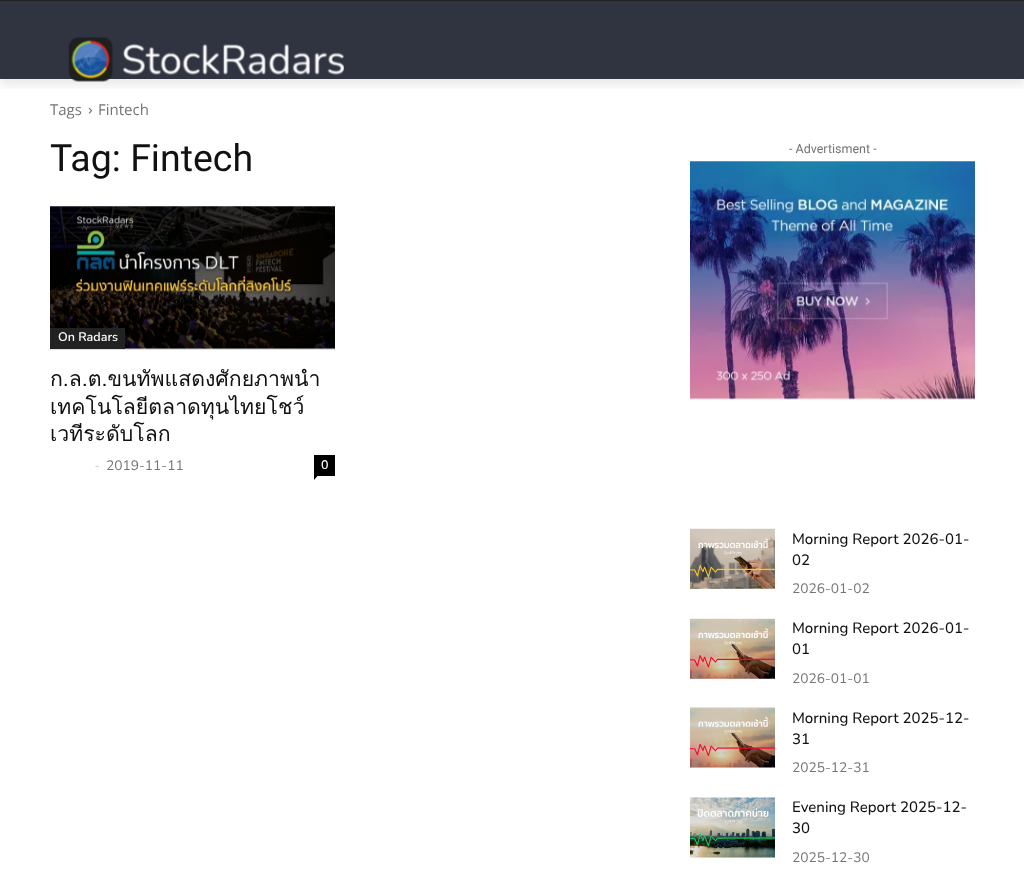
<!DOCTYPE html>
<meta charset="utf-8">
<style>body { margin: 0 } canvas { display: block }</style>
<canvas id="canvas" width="1024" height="878"></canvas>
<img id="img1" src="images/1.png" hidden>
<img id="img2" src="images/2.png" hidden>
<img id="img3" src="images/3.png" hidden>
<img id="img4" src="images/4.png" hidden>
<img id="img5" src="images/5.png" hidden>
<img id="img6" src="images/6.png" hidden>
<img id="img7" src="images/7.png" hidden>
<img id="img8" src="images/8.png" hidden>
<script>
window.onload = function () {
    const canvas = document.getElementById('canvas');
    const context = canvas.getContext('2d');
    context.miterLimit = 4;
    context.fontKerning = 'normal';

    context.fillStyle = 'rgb(255, 255, 255)';
    context.fillRect(0, 0, 1024, 878);
    context.fillStyle = 'rgb(34, 34, 34)';
    context.fillRect(0, 0, 1024, 1);
    context.fillStyle = 'rgb(48, 52, 64)';
    context.fillRect(0, 1, 1024, 78);
    context.drawImage(document.getElementById('img1'), 68, 37, 276, 45);
    context.save();
    context.beginPath();
    context.rect(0, 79, 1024, 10);
    context.clip();
    context.fillStyle = 'rgba(0, 0, 0, 0.08)';
    context.filter = 'blur(5px)';
    context.beginPath();
    context.rect(0, 8, 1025, 78);
    context.fill();
    context.filter = 'none';
    context.restore();
    context.drawImage(document.getElementById('img2'), 88, 107, 5, 7);
    context.drawImage(document.getElementById('img3'), 50, 206, 285, 144);
    context.fillStyle = 'rgb(34, 34, 34)';
    context.fillRect(50, 328, 75, 21);
    context.fillStyle = 'rgb(0, 0, 0)';
    context.fillRect(314, 455, 21, 21);
    context.beginPath();
    context.moveTo(314, 476);
    context.lineTo(317.5, 476);
    context.lineTo(314, 480);
    context.closePath();
    context.fill();
    context.drawImage(document.getElementById('img4'), 690, 161, 285, 239);
    context.drawImage(document.getElementById('img5'), 690, 528, 85, 61);
    context.drawImage(document.getElementById('img6'), 690, 618, 85, 61);
    context.drawImage(document.getElementById('img7'), 690, 707, 85, 61);
    context.drawImage(document.getElementById('img8'), 690, 797, 85, 61);
    context.font = '15px Open Sans';
    context.fillStyle = 'rgb(116, 116, 116)';
    context.fillText('Tags', 50, 115);
    context.fillText('Fintech', 98, 115);
    context.font = '37.5px Roboto';
    context.fillStyle = 'rgb(17, 17, 17)';
    context.fillText('Tag: Fintech', 50, 171);
    context.font = '600 12.5px Nunito';
    context.fillStyle = 'rgb(255, 255, 255)';
    context.fillText('On Radars', 58, 341);
    context.font = '21.25px Loma';
    context.fillStyle = 'rgb(17, 17, 17)';
    context.fillText('ก.ล.ต.ขนทัพแสดงศักยภาพนำ', 50, 386);
    context.fillText('เทคโนโลยีตลาดทุนไทยโชว์', 50, 414);
    context.fillText('เวทีระดับโลก', 50, 441);
    context.font = '13.75px Open Sans';
    context.fillStyle = 'rgb(204, 204, 204)';
    context.fillText('-', 95, 470);
    context.font = '13.75px Nunito';
    context.fillStyle = 'rgb(116, 116, 116)';
    context.fillText('2019-11-11', 106, 470);
    context.font = '600 12.5px Nunito';
    context.fillStyle = 'rgb(255, 255, 255)';
    context.fillText('0', 321, 469);
    context.font = '12.5px Roboto';
    context.fillStyle = 'rgb(116, 116, 116)';
    context.fillText('- Advertisment -', 789, 153);
    context.font = '500 15px Nunito';
    context.fillStyle = 'rgb(17, 17, 17)';
    context.fillText('Morning Report 2026-01-', 792, 544);
    context.fillText('02', 792, 565);
    context.font = '13.75px Nunito';
    context.fillStyle = 'rgb(116, 116, 116)';
    context.fillText('2026-01-02', 792, 593);
    context.font = '500 15px Nunito';
    context.fillStyle = 'rgb(17, 17, 17)';
    context.fillText('Morning Report 2026-01-', 792, 633);
    context.fillText('01', 792, 654);
    context.font = '13.75px Nunito';
    context.fillStyle = 'rgb(116, 116, 116)';
    context.fillText('2026-01-01', 792, 683);
    context.font = '500 15px Nunito';
    context.fillStyle = 'rgb(17, 17, 17)';
    context.fillText('Morning Report 2025-12-', 792, 723);
    context.fillText('31', 792, 744);
    context.font = '13.75px Nunito';
    context.fillStyle = 'rgb(116, 116, 116)';
    context.fillText('2025-12-31', 792, 772);
    context.font = '500 15px Nunito';
    context.fillStyle = 'rgb(17, 17, 17)';
    context.fillText('Evening Report 2025-12-', 792, 812);
    context.fillText('30', 792, 833);
    context.font = '13.75px Nunito';
    context.fillStyle = 'rgb(116, 116, 116)';
    context.fillText('2025-12-30', 792, 862);
};
</script>
